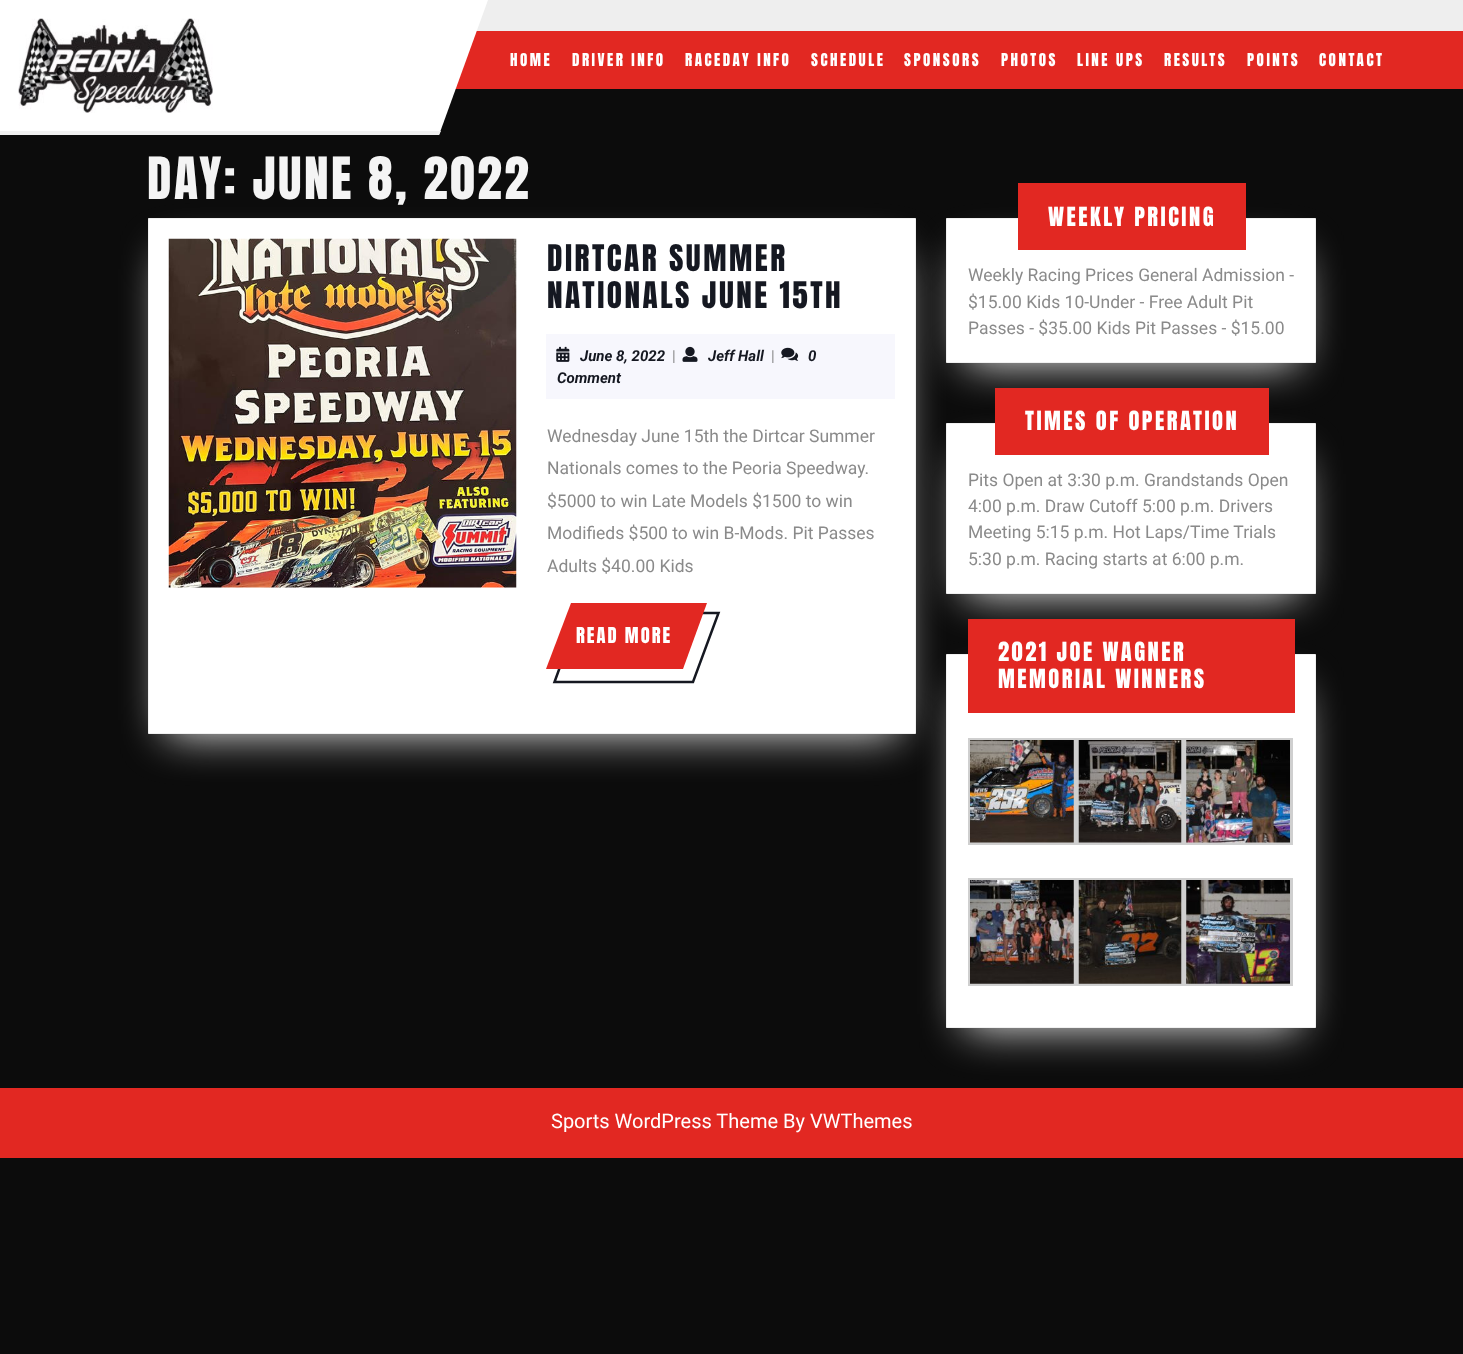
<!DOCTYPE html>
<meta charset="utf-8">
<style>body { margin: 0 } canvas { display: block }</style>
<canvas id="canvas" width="1463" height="1354"></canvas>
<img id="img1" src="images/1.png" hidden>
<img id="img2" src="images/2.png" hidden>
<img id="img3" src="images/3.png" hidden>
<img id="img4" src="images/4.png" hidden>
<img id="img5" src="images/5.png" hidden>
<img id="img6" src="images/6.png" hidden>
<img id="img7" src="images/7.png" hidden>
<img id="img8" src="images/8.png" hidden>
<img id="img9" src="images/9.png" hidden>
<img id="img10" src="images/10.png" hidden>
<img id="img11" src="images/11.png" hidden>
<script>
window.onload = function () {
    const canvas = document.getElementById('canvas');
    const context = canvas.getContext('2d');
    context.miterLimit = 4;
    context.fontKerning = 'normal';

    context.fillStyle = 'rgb(12, 12, 12)';
    context.fillRect(0, 0, 1463, 1354);
    context.fillStyle = 'rgb(238, 238, 238)';
    context.fillRect(476, 0, 987, 31);
    context.fillStyle = 'rgb(226, 40, 34)';
    context.fillRect(455, 31, 1008, 58);
    context.fillStyle = 'rgb(255, 255, 255)';
    context.beginPath();
    context.moveTo(0, 0);
    context.lineTo(0, 135);
    context.lineTo(439, 135);
    context.lineTo(488, 0);
    context.closePath();
    context.fill();
    context.fillStyle = 'rgb(241, 241, 241)';
    context.beginPath();
    context.moveTo(0, 131);
    context.lineTo(0, 135);
    context.lineTo(439, 135);
    context.lineTo(441, 131);
    context.closePath();
    context.fill();
    context.drawImage(document.getElementById('img1'), 18, 18, 195, 95);
    context.fillStyle = 'rgb(240, 240, 240)';
    context.filter = 'blur(22px)';
    context.beginPath();
    context.rect(166, 255, 732, 479);
    context.fill();
    context.filter = 'none';
    context.fillStyle = 'rgb(255, 255, 255)';
    context.beginPath();
    context.rect(148.5, 218.5, 767, 515);
    context.fill();
    context.strokeStyle = 'rgb(240, 240, 240)';
    context.stroke();
    context.drawImage(document.getElementById('img2'), 168, 238, 349, 350);
    context.fillStyle = 'rgb(247, 247, 253)';
    context.fillRect(546, 334, 349, 65);
    context.drawImage(document.getElementById('img3'), 556, 346, 14, 16);
    context.drawImage(document.getElementById('img4'), 682, 346, 16, 16);
    context.drawImage(document.getElementById('img5'), 781, 347, 18, 14);
    context.beginPath();
    context.moveTo(579.5, 613);
    context.lineTo(718.5, 613);
    context.lineTo(693, 682);
    context.lineTo(554.5, 682);
    context.closePath();
    context.strokeStyle = 'rgb(21, 24, 33)';
    context.lineWidth = 2.5;
    context.stroke();
    context.fillStyle = 'rgb(226, 40, 34)';
    context.beginPath();
    context.moveTo(571, 603);
    context.lineTo(707, 603);
    context.lineTo(683, 669);
    context.lineTo(546, 669);
    context.closePath();
    context.fill();
    context.fillStyle = 'rgb(240, 240, 240)';
    context.filter = 'blur(22px)';
    context.beginPath();
    context.rect(965, 255, 333, 108);
    context.fill();
    context.filter = 'none';
    context.fillStyle = 'rgb(255, 255, 255)';
    context.beginPath();
    context.rect(946.5, 218.5, 369, 144);
    context.fill();
    context.strokeStyle = 'rgb(240, 240, 240)';
    context.lineWidth = 1;
    context.stroke();
    context.fillStyle = 'rgb(226, 40, 34)';
    context.fillRect(1018, 183, 228, 67);
    context.fillStyle = 'rgb(240, 240, 240)';
    context.filter = 'blur(22px)';
    context.beginPath();
    context.rect(965, 460, 333, 134);
    context.fill();
    context.filter = 'none';
    context.fillStyle = 'rgb(255, 255, 255)';
    context.beginPath();
    context.rect(946.5, 423.5, 369, 170);
    context.fill();
    context.stroke();
    context.fillStyle = 'rgb(226, 40, 34)';
    context.fillRect(995, 388, 274, 67);
    context.fillRect(0, 1088, 1463, 70);
    context.fillStyle = 'rgb(240, 240, 240)';
    context.filter = 'blur(22px)';
    context.beginPath();
    context.rect(965, 691, 333, 337);
    context.fill();
    context.filter = 'none';
    context.fillStyle = 'rgb(255, 255, 255)';
    context.beginPath();
    context.rect(946.5, 654.5, 369, 373);
    context.fill();
    context.stroke();
    context.fillStyle = 'rgb(226, 40, 34)';
    context.fillRect(968, 619, 327, 94);
    context.strokeStyle = 'rgb(207, 207, 207)';
    context.lineWidth = 3;
    context.strokeRect(969.5, 739.5, 105, 104);
    context.drawImage(document.getElementById('img6'), 970, 740, 104, 103);
    context.strokeRect(1077.5, 739.5, 105, 104);
    context.drawImage(document.getElementById('img7'), 1078, 740, 104, 103);
    context.strokeRect(1185.5, 739.5, 106, 104);
    context.drawImage(document.getElementById('img8'), 1186, 740, 104, 103);
    context.strokeRect(969.5, 879.5, 105, 105);
    context.drawImage(document.getElementById('img9'), 970, 880, 104, 104);
    context.strokeRect(1077.5, 879.5, 105, 105);
    context.drawImage(document.getElementById('img10'), 1078, 880, 104, 104);
    context.strokeRect(1185.5, 879.5, 106, 105);
    context.drawImage(document.getElementById('img11'), 1186, 880, 104, 104);
    context.letterSpacing = '2.5px';
    context.font = '15px Anton';
    context.fillStyle = 'rgb(255, 255, 255)';
    context.fillText('HOME', 510, 66);
    context.fillText('DRIVER INFO', 572, 66);
    context.fillText('RACEDAY INFO', 685, 66);
    context.fillText('SCHEDULE', 811, 66);
    context.fillText('SPONSORS', 904, 66);
    context.fillText('PHOTOS', 1001, 66);
    context.fillText('LINE UPS', 1077, 66);
    context.fillText('RESULTS', 1164, 66);
    context.fillText('POINTS', 1247, 66);
    context.fillText('CONTACT', 1319, 66);
    context.font = '49.5px Anton';
    context.fillStyle = 'rgb(244, 244, 244)';
    context.fillText('DAY: JUNE 8, 2022', 147, 199);
    context.font = '31.25px Anton';
    context.fillStyle = 'rgb(21, 24, 33)';
    context.fillText('DIRTCAR SUMMER', 547, 271);
    context.fillText('NATIONALS JUNE 15TH', 547, 308);
    context.letterSpacing = '0px';
    context.font = 'italic bold 15px Roboto';
    context.fillText('June 8, 2022', 580, 361);
    context.font = '15px Roboto';
    context.fillStyle = 'rgb(138, 138, 138)';
    context.fillText('|', 672, 361);
    context.font = 'italic bold 15px Roboto';
    context.fillStyle = 'rgb(21, 24, 33)';
    context.fillText('Jeff Hall', 708, 361);
    context.font = '15px Roboto';
    context.fillStyle = 'rgb(138, 138, 138)';
    context.fillText('|', 771, 361);
    context.font = 'italic bold 15px Roboto';
    context.fillStyle = 'rgb(21, 24, 33)';
    context.fillText('0', 808, 361);
    context.fillText('Comment', 557, 383);
    context.font = '17.5px Roboto';
    context.fillStyle = 'rgb(138, 138, 138)';
    context.fillText('Wednesday June 15th the Dirtcar Summer', 547, 442);
    context.fillText('Nationals comes to the Peoria Speedway.', 547, 474);
    context.fillText('$5000 to win Late Models $1500 to win', 547, 507);
    context.fillText('Modifieds $500 to win B-Mods. Pit Passes', 547, 539);
    context.fillText('Adults $40.00 Kids', 547, 572);
    context.letterSpacing = '2px';
    context.font = '18.5px Anton';
    context.fillStyle = 'rgb(255, 255, 255)';
    context.fillText('READ MORE', 576, 643);
    context.letterSpacing = '2.5px';
    context.font = '22.5px Anton';
    context.fillText('WEEKLY PRICING', 1048, 226);
    context.letterSpacing = '0px';
    context.font = '17.5px Roboto';
    context.fillStyle = 'rgb(138, 138, 138)';
    context.fillText('Weekly Racing Prices General Admission -', 968, 281);
    context.fillText('$15.00 Kids 10-Under - Free Adult Pit', 968, 308);
    context.fillText('Passes - $35.00 Kids Pit Passes - $15.00', 968, 334);
    context.letterSpacing = '2.5px';
    context.font = '22.5px Anton';
    context.fillStyle = 'rgb(255, 255, 255)';
    context.fillText('TIMES OF OPERATION', 1025, 430);
    context.letterSpacing = '0px';
    context.font = '17.5px Roboto';
    context.fillStyle = 'rgb(138, 138, 138)';
    context.fillText('Pits Open at 3:30 p.m. Grandstands Open', 968, 486);
    context.fillText('4:00 p.m. Draw Cutoff 5:00 p.m. Drivers', 968, 512);
    context.fillText('Meeting 5:15 p.m. Hot Laps/Time Trials', 968, 538);
    context.fillText('5:30 p.m. Racing starts at 6:00 p.m.', 968, 565);
    context.letterSpacing = '2.5px';
    context.font = '22.5px Anton';
    context.fillStyle = 'rgb(255, 255, 255)';
    context.fillText('2021 JOE WAGNER', 998, 661);
    context.fillText('MEMORIAL WINNERS', 998, 688);
    context.letterSpacing = '0px';
    context.font = '20px Roboto';
    context.fillText('Sports WordPress Theme By VWThemes', 551, 1128);
};
</script>
